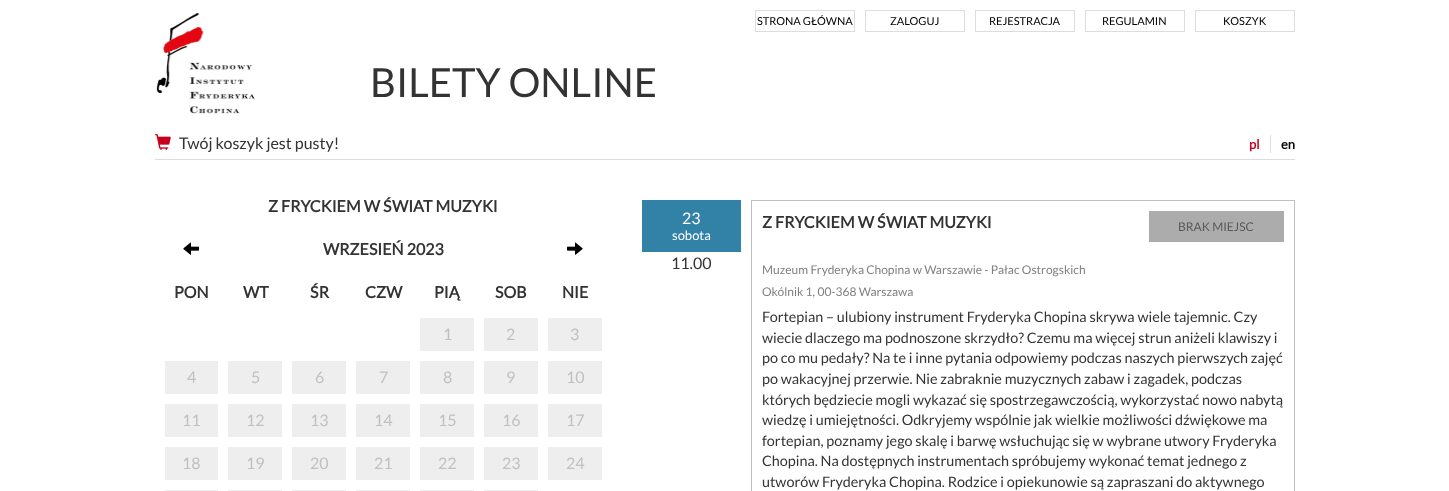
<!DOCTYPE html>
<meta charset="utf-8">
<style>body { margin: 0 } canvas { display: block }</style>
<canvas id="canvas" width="1449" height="491"></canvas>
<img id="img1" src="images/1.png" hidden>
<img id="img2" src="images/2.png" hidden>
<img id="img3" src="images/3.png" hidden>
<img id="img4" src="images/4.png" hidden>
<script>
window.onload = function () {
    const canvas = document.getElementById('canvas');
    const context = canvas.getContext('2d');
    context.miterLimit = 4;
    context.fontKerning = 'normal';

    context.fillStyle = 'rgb(255, 255, 255)';
    context.fillRect(0, 0, 1449, 491);
    context.fillStyle = 'rgb(221, 221, 221)';
    context.fillRect(155, 159, 1140, 1);
    context.drawImage(document.getElementById('img1'), 156, 12, 99, 102);
    context.strokeStyle = 'rgb(221, 221, 221)';
    context.strokeRect(755.5, 10.5, 99, 21);
    context.strokeRect(865.5, 10.5, 99, 21);
    context.strokeRect(975.5, 10.5, 99, 21);
    context.strokeRect(1085.5, 10.5, 99, 21);
    context.strokeRect(1195.5, 10.5, 99, 21);
    context.drawImage(document.getElementById('img2'), 155, 134, 16, 16);
    context.fillRect(1270, 135, 1, 18);
    context.drawImage(document.getElementById('img3'), 183, 242, 16, 13);
    context.drawImage(document.getElementById('img4'), 567, 242, 16, 13);
    context.fillStyle = 'rgb(238, 238, 238)';
    context.fillRect(420, 318, 54, 33);
    context.fillRect(484, 318, 54, 33);
    context.fillRect(548, 318, 54, 33);
    context.fillRect(165, 361, 53, 33);
    context.fillRect(228, 361, 54, 33);
    context.fillRect(292, 361, 54, 33);
    context.fillRect(356, 361, 54, 33);
    context.fillRect(420, 361, 54, 33);
    context.fillRect(484, 361, 54, 33);
    context.fillRect(548, 361, 54, 33);
    context.fillRect(165, 404, 53, 33);
    context.fillRect(228, 404, 54, 33);
    context.fillRect(292, 404, 54, 33);
    context.fillRect(356, 404, 54, 33);
    context.fillRect(420, 404, 54, 33);
    context.fillRect(484, 404, 54, 33);
    context.fillRect(548, 404, 54, 33);
    context.fillRect(165, 447, 53, 33);
    context.fillRect(228, 447, 54, 33);
    context.fillRect(292, 447, 54, 33);
    context.fillRect(356, 447, 54, 33);
    context.fillRect(420, 447, 54, 33);
    context.fillRect(484, 447, 54, 33);
    context.fillRect(548, 447, 54, 33);
    context.fillRect(165, 490, 53, 1);
    context.fillRect(228, 490, 54, 1);
    context.fillRect(292, 490, 54, 1);
    context.fillRect(356, 490, 54, 1);
    context.fillRect(420, 490, 54, 1);
    context.fillRect(484, 490, 54, 1);
    context.fillStyle = 'rgb(50, 129, 166)';
    context.fillRect(642, 200, 99, 52);
    context.strokeStyle = 'rgb(192, 192, 192)';
    context.strokeRect(751.5, 200.5, 543, 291);
    context.fillStyle = 'rgb(172, 172, 172)';
    context.fillRect(1149, 211, 135, 31);
    context.font = '11px Lato';
    context.fillStyle = 'rgb(0, 0, 0)';
    context.fillText('STRONA GŁÓWNA', 757, 25);
    context.fillText('ZALOGUJ', 890, 25);
    context.fillText('REJESTRACJA', 989, 25);
    context.fillText('REGULAMIN', 1102, 25);
    context.fillText('KOSZYK', 1223, 25);
    context.font = '40px Lato';
    context.fillStyle = 'rgb(51, 51, 51)';
    context.fillText('BILETY ONLINE', 370, 97);
    context.font = '16px Lato';
    context.fillText('Twój koszyk jest pusty!', 179, 149);
    context.font = 'bold 13px Lato';
    context.fillStyle = 'rgb(198, 0, 28)';
    context.fillText('pl', 1249, 149);
    context.fillStyle = 'rgb(0, 0, 0)';
    context.fillText('en', 1281, 149);
    context.font = 'bold 16px Lato';
    context.fillStyle = 'rgb(51, 51, 51)';
    context.fillText('Z FRYCKIEM W ŚWIAT MUZYKI', 268, 212);
    context.fillText('WRZESIEŃ 2023', 323, 255);
    context.fillText('PON', 174, 298);
    context.fillText('WT', 243, 298);
    context.fillText('ŚR', 310, 298);
    context.fillText('CZW', 365, 298);
    context.fillText('PIĄ', 434, 298);
    context.fillText('SOB', 495, 298);
    context.fillText('NIE', 562, 298);
    context.font = '16px Lato';
    context.fillStyle = 'rgb(192, 192, 192)';
    context.fillText('1', 443, 340);
    context.fillText('2', 506, 340);
    context.fillText('3', 570, 340);
    context.fillText('4', 187, 383);
    context.fillText('5', 251, 383);
    context.fillText('6', 315, 383);
    context.fillText('7', 379, 383);
    context.fillText('8', 443, 383);
    context.fillText('9', 506, 383);
    context.fillText('10', 566, 383);
    context.fillText('11', 182, 426);
    context.fillText('12', 246, 426);
    context.fillText('13', 310, 426);
    context.fillText('14', 374, 426);
    context.fillText('15', 438, 426);
    context.fillText('16', 502, 426);
    context.fillText('17', 566, 426);
    context.fillText('18', 182, 469);
    context.fillText('19', 246, 469);
    context.fillText('20', 310, 469);
    context.fillText('21', 374, 469);
    context.fillText('22', 438, 469);
    context.fillText('23', 502, 469);
    context.fillText('24', 566, 469);
    context.fillStyle = 'rgb(255, 255, 255)';
    context.fillText('23', 682, 224);
    context.font = '13px Lato';
    context.fillText('sobota', 672, 240);
    context.font = '16px Lato';
    context.fillStyle = 'rgb(51, 51, 51)';
    context.fillText('11.00', 671, 269);
    context.font = 'bold 16px Lato';
    context.fillText('Z FRYCKIEM W ŚWIAT MUZYKI', 762, 228);
    context.font = '12px Lato';
    context.fillStyle = 'rgb(89, 89, 89)';
    context.fillText('BRAK MIEJSC', 1178, 231);
    context.fillStyle = 'rgb(128, 128, 128)';
    context.fillText('Muzeum Fryderyka Chopina w Warszawie - Pałac Ostrogskich', 762, 274);
    context.fillText('Okólnik 1, 00-368 Warszawa', 762, 296);
    context.font = '14.4px Lato';
    context.fillStyle = 'rgb(51, 51, 51)';
    context.fillText('Fortepian – ulubiony instrument Fryderyka Chopina skrywa wiele tajemnic. Czy', 762, 322);
    context.fillText('wiecie dlaczego ma podnoszone skrzydło? Czemu ma więcej strun aniżeli klawiszy i', 762, 343);
    context.fillText('po co mu pedały? Na te i inne pytania odpowiemy podczas naszych pierwszych zajęć', 762, 363);
    context.fillText('po wakacyjnej przerwie. Nie zabraknie muzycznych zabaw i zagadek, podczas', 762, 384);
    context.fillText('których będziecie mogli wykazać się spostrzegawczością, wykorzystać nowo nabytą', 762, 405);
    context.fillText('wiedzę i umiejętności. Odkryjemy wspólnie jak wielkie możliwości dźwiękowe ma', 762, 425);
    context.fillText('fortepian, poznamy jego skalę i barwę wsłuchując się w wybrane utwory Fryderyka', 762, 446);
    context.fillText('Chopina. Na dostępnych instrumentach spróbujemy wykonać temat jednego z', 762, 466);
    context.fillText('utworów Fryderyka Chopina. Rodzice i opiekunowie są zapraszani do aktywnego', 762, 487);
};
</script>
